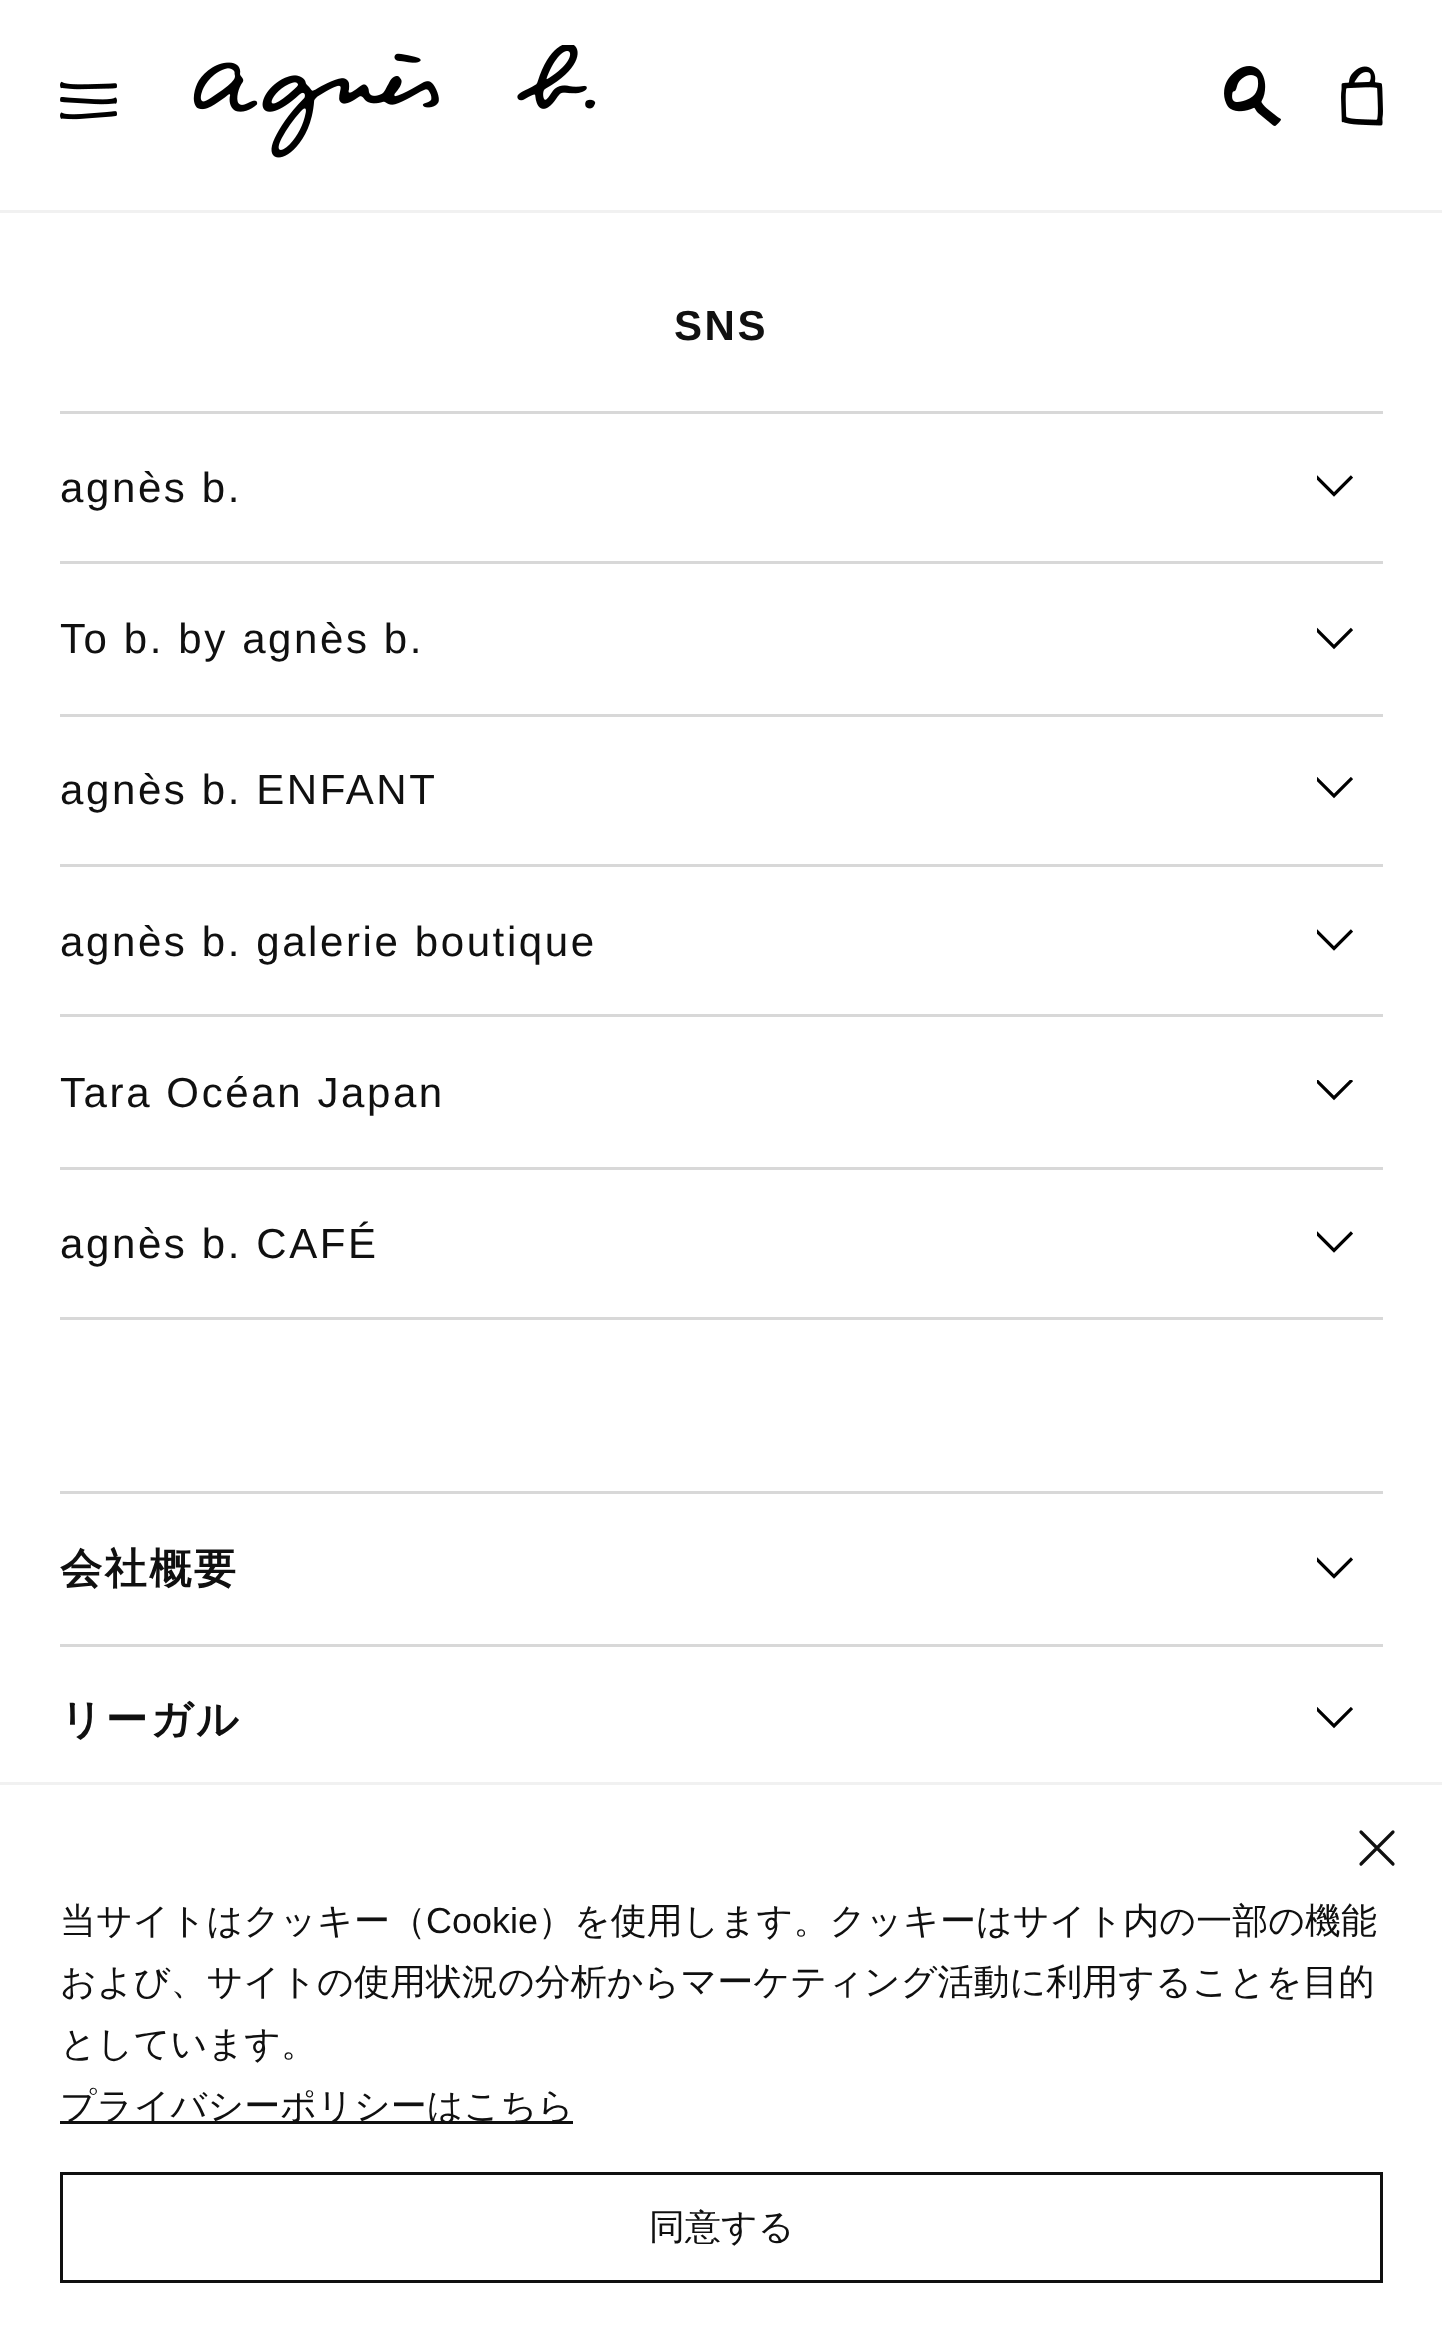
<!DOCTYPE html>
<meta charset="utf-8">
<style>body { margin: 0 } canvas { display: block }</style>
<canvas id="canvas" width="1442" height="2341"></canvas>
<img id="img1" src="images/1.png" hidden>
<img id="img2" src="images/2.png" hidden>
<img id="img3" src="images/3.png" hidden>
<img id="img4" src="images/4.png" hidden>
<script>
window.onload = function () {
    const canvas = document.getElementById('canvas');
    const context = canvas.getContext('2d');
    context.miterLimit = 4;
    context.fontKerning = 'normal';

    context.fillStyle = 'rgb(255, 255, 255)';
    context.fillRect(0, 0, 1442, 2341);
    context.fillStyle = 'rgb(241, 241, 241)';
    context.fillRect(0, 210, 1442, 3);
    context.drawImage(document.getElementById('img1'), 60, 81, 57, 39);
    context.drawImage(document.getElementById('img2'), 193, 45, 403, 113);
    context.drawImage(document.getElementById('img3'), 1224, 66, 57, 60);
    context.drawImage(document.getElementById('img4'), 1341, 66, 42, 60);
    context.fillStyle = 'rgb(216, 216, 216)';
    context.fillRect(60, 1317, 1323, 3);
    context.fillRect(60, 411, 1323, 3);
    context.save();
    context.beginPath();
    context.rect(1317, 474, 36, 27);
    context.clip();
    context.beginPath();
    context.moveTo(1316, 476.5);
    context.lineTo(1334, 494.5);
    context.lineTo(1352, 476.5);
    context.strokeStyle = 'rgb(0, 0, 0)';
    context.lineWidth = 3.2;
    context.stroke();
    context.restore();
    context.fillRect(60, 561, 1323, 3);
    context.save();
    context.beginPath();
    context.rect(1317, 627, 36, 24);
    context.clip();
    context.beginPath();
    context.moveTo(1316, 629);
    context.lineTo(1334, 647);
    context.lineTo(1352, 629);
    context.strokeStyle = 'rgb(0, 0, 0)';
    context.lineWidth = 3.2;
    context.stroke();
    context.restore();
    context.fillRect(60, 714, 1323, 3);
    context.save();
    context.beginPath();
    context.rect(1317, 777, 36, 26);
    context.clip();
    context.beginPath();
    context.moveTo(1316, 778);
    context.lineTo(1334, 796);
    context.lineTo(1352, 778);
    context.strokeStyle = 'rgb(0, 0, 0)';
    context.lineWidth = 3.2;
    context.stroke();
    context.restore();
    context.fillRect(60, 864, 1323, 3);
    context.save();
    context.beginPath();
    context.rect(1317, 928, 36, 26);
    context.clip();
    context.beginPath();
    context.moveTo(1316, 930.5);
    context.lineTo(1334, 948.5);
    context.lineTo(1352, 930.5);
    context.strokeStyle = 'rgb(0, 0, 0)';
    context.lineWidth = 3.2;
    context.stroke();
    context.restore();
    context.fillRect(60, 1014, 1323, 3);
    context.save();
    context.beginPath();
    context.rect(1317, 1080, 36, 25);
    context.clip();
    context.beginPath();
    context.moveTo(1316, 1080);
    context.lineTo(1334, 1098);
    context.lineTo(1352, 1080);
    context.strokeStyle = 'rgb(0, 0, 0)';
    context.lineWidth = 3.2;
    context.stroke();
    context.restore();
    context.fillRect(60, 1167, 1323, 3);
    context.save();
    context.beginPath();
    context.rect(1317, 1230, 36, 27);
    context.clip();
    context.beginPath();
    context.moveTo(1316, 1232.5);
    context.lineTo(1334, 1250.5);
    context.lineTo(1352, 1232.5);
    context.strokeStyle = 'rgb(0, 0, 0)';
    context.lineWidth = 3.2;
    context.stroke();
    context.restore();
    context.fillRect(60, 1491, 1323, 3);
    context.save();
    context.beginPath();
    context.rect(1317, 1556, 36, 25);
    context.clip();
    context.beginPath();
    context.moveTo(1316, 1558.5);
    context.lineTo(1334, 1576.5);
    context.lineTo(1352, 1558.5);
    context.strokeStyle = 'rgb(0, 0, 0)';
    context.lineWidth = 3.2;
    context.stroke();
    context.restore();
    context.fillRect(60, 1644, 1323, 3);
    context.save();
    context.beginPath();
    context.rect(1317, 1707, 36, 26);
    context.clip();
    context.beginPath();
    context.moveTo(1316, 1708);
    context.lineTo(1334, 1726);
    context.lineTo(1352, 1708);
    context.strokeStyle = 'rgb(0, 0, 0)';
    context.lineWidth = 3.2;
    context.stroke();
    context.restore();
    context.fillStyle = 'rgb(241, 241, 241)';
    context.fillRect(0, 1782, 1442, 3);
    context.beginPath();
    context.moveTo(1361, 1832);
    context.lineTo(1393, 1864);
    context.moveTo(1361, 1864);
    context.lineTo(1393, 1832);
    context.strokeStyle = 'rgb(16, 16, 16)';
    context.lineWidth = 3.2;
    context.lineCap = 'round';
    context.stroke();
    context.fillStyle = 'rgb(16, 16, 16)';
    context.fillRect(60, 2121, 513, 3);
    context.lineWidth = 3;
    context.strokeRect(61.5, 2173.5, 1320, 108);
    context.letterSpacing = '2.6px';
    context.font = 'bold 42px Liberation Sans';
    context.fillText('SNS', 674, 340);
    context.font = '42px Liberation Sans';
    context.fillText('agnès b.', 60, 502);
    context.fillText('To b. by agnès b.', 60, 653);
    context.fillText('agnès b. ENFANT', 60, 804);
    context.fillText('agnès b. galerie boutique', 60, 956);
    context.fillText('Tara Océan Japan', 60, 1107);
    context.fillText('agnès b. CAFÉ', 60, 1258);
    context.font = 'bold 42px WenQuanYi Zen Hei';
    context.fillText('会社概要', 60, 1583);
    context.fillText('リーガル', 60, 1734);
    context.letterSpacing = '0px';
    context.font = '500 36px WenQuanYi Zen Hei';
    context.fillText('当サイトはクッキー（', 60, 1933);
    context.font = '36px Liberation Sans';
    context.fillText('Cookie', 426, 1933);
    context.font = '500 36px WenQuanYi Zen Hei';
    context.fillText('）を使用します。クッキーはサイト内の一部の機能', 538, 1933);
    context.fillText('および、サイトの使用状況の分析からマーケティング活動に利用することを目的', 60, 1994);
    context.fillText('としています。', 60, 2056);
    context.fillText('プライバシーポリシーはこちら', 60, 2118);
    context.fillText('同意する', 649, 2239);
};
</script>
